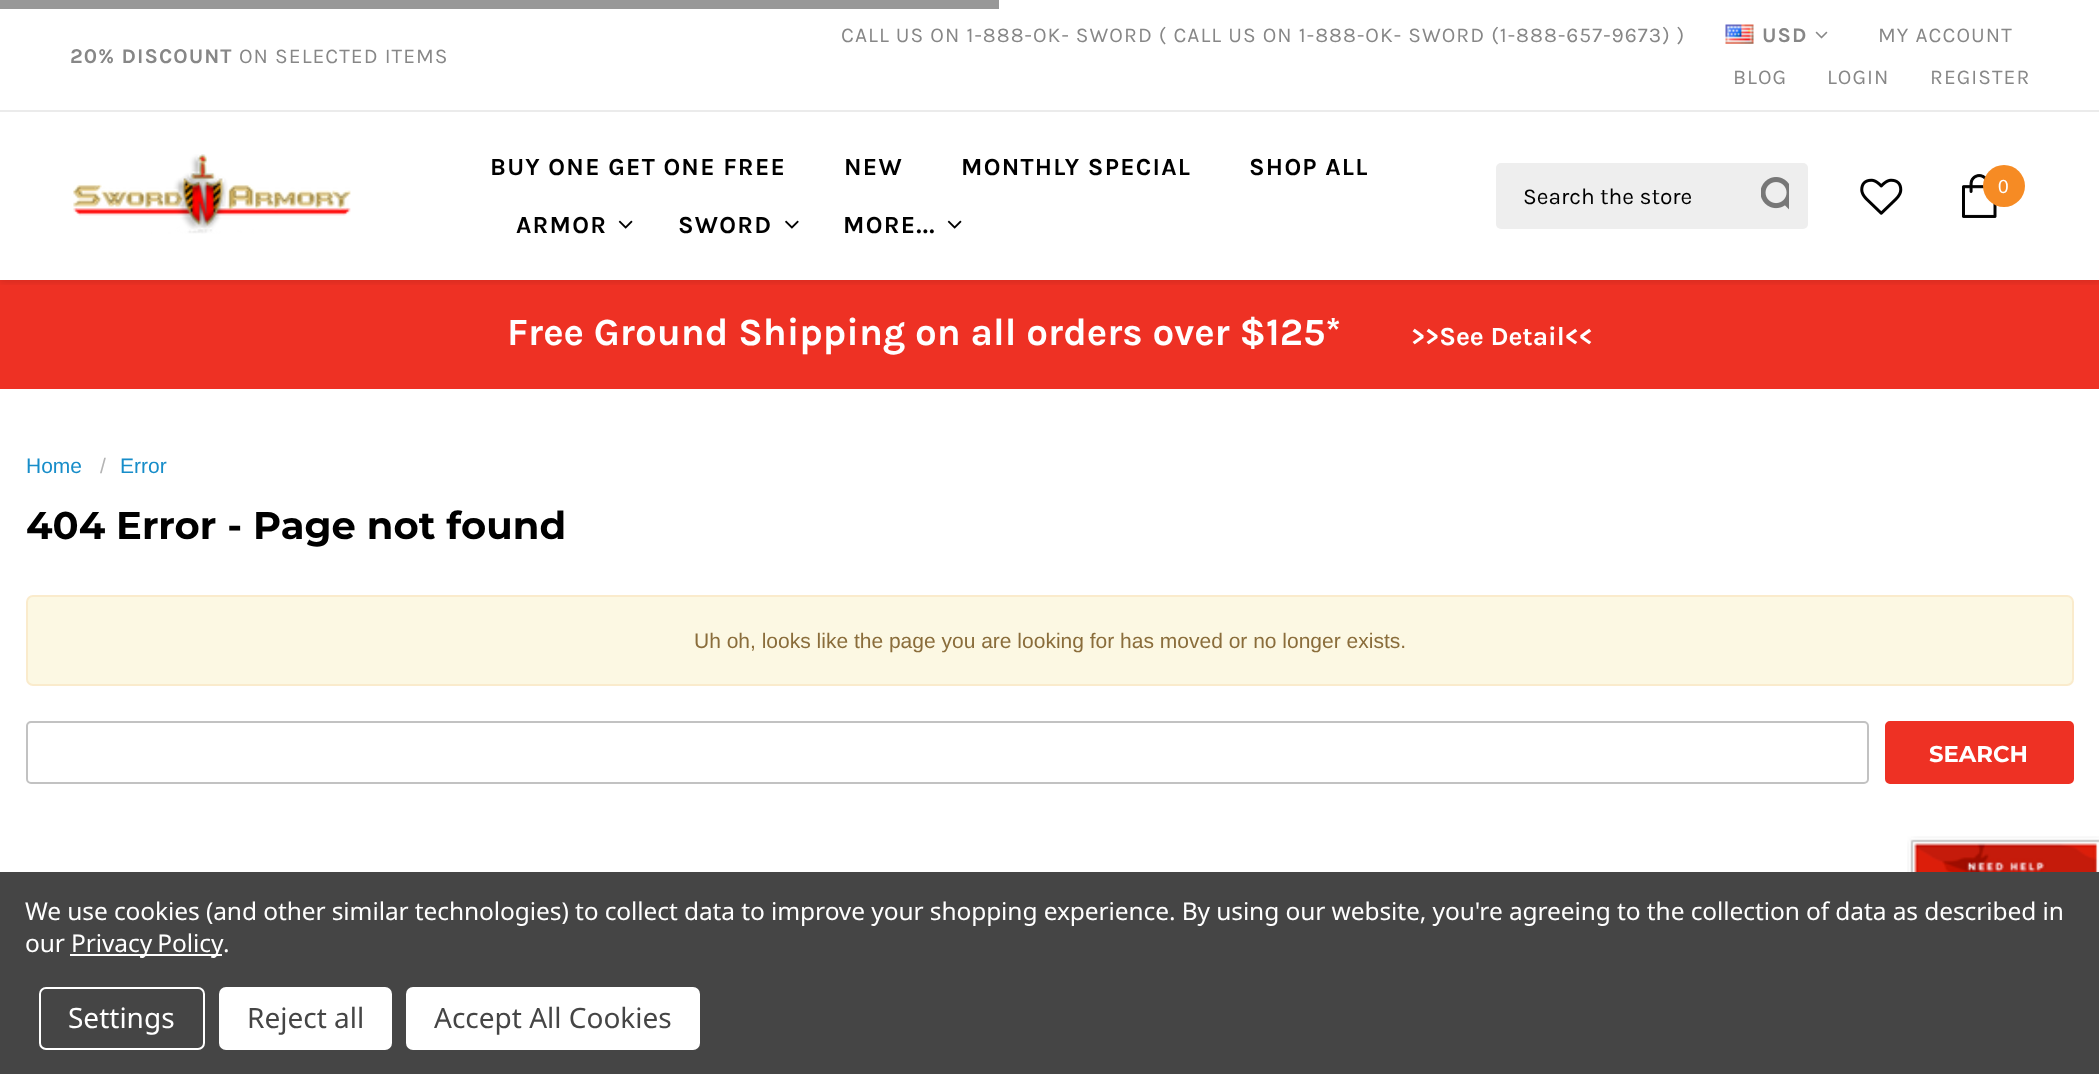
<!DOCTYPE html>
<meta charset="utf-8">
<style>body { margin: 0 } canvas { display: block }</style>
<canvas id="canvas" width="2099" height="1074"></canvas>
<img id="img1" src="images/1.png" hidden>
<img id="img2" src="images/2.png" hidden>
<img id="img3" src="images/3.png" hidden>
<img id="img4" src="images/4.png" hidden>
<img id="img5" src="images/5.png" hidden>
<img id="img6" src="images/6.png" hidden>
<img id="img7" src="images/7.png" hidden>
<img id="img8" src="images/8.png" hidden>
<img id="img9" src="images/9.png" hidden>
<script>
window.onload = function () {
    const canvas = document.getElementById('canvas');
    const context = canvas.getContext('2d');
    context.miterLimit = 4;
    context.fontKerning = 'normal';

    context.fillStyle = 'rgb(255, 255, 255)';
    context.fillRect(0, 0, 2099, 1074);
    context.fillStyle = 'rgb(152, 152, 152)';
    context.fillRect(0, 0, 999, 9);
    context.fillStyle = 'rgb(238, 49, 36)';
    context.fillRect(0, 280, 2099, 109);
    context.save();
    context.beginPath();
    context.rect(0, 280, 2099, 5);
    context.clip();
    context.fillStyle = 'rgba(0, 0, 0, 0.1)';
    context.filter = 'blur(3.5px)';
    context.beginPath();
    context.rect(0, 114, 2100, 168);
    context.fill();
    context.filter = 'none';
    context.restore();
    context.fillStyle = 'rgb(235, 235, 235)';
    context.fillRect(0, 110, 2099, 2);
    context.drawImage(document.getElementById('img1'), 1725, 24, 29, 20);
    context.drawImage(document.getElementById('img2'), 1815, 31, 13, 8);
    context.drawImage(document.getElementById('img3'), 73, 154, 278, 80);
    context.drawImage(document.getElementById('img4'), 618, 220, 15, 9);
    context.drawImage(document.getElementById('img5'), 785, 220, 14, 9);
    context.drawImage(document.getElementById('img4'), 947, 220, 15, 9);
    context.drawImage(document.getElementById('img6'), 1860, 178, 43, 37);
    context.drawImage(document.getElementById('img7'), 1962, 174, 35, 44);
    context.fillStyle = 'rgb(246, 139, 36)';
    context.beginPath();
    context.arc(2004, 186, 21, 0, 2 * Math.PI);
    context.fill();
    context.fillStyle = 'rgb(238, 238, 238)';
    context.beginPath();
    context.roundRect(1496, 163, 312, 66, 5);
    context.fill();
    context.drawImage(document.getElementById('img8'), 1761, 177, 28, 33);
    context.fillStyle = 'rgb(252, 248, 227)';
    context.beginPath();
    context.roundRect(27, 596, 2046, 89, 6);
    context.fill();
    context.strokeStyle = 'rgb(250, 235, 204)';
    context.lineWidth = 2;
    context.stroke();
    context.beginPath();
    context.roundRect(27, 722, 1841, 61, 4);
    context.strokeStyle = 'rgb(194, 194, 194)';
    context.stroke();
    context.fillStyle = 'rgb(238, 49, 36)';
    context.beginPath();
    context.roundRect(1886, 722, 187, 61, 4);
    context.fill();
    context.strokeStyle = 'rgb(238, 49, 36)';
    context.stroke();
    context.drawImage(document.getElementById('img9'), 1907, 836, 192, 36);
    context.fillStyle = 'rgb(69, 69, 69)';
    context.fillRect(0, 872, 2099, 202);
    context.fillStyle = 'rgb(255, 255, 255)';
    context.fillRect(70, 954, 152, 2);
    context.beginPath();
    context.roundRect(40, 988, 164, 61, 6);
    context.strokeStyle = 'rgb(255, 255, 255)';
    context.stroke();
    context.beginPath();
    context.roundRect(219, 987, 173, 63, 7);
    context.fill();
    context.beginPath();
    context.roundRect(406, 987, 294, 63, 7);
    context.fill();
    context.letterSpacing = '1.05px';
    context.font = 'bold 21px Karla';
    context.fillStyle = 'rgb(135, 135, 135)';
    context.fillText('20% DISCOUNT', 70, 63);
    context.font = '21px Karla';
    context.fillText('ON SELECTED ITEMS', 239, 63);
    context.fillText('CALL US ON 1-888-OK- SWORD ( CALL US ON 1-888-OK- SWORD (1-888-657-9673) )', 841, 42);
    context.font = 'bold 21px Karla';
    context.fillText('USD', 1762, 42);
    context.font = '21px Karla';
    context.fillText('MY ACCOUNT', 1878, 42);
    context.fillText('BLOG', 1733, 84);
    context.fillText('LOGIN', 1827, 84);
    context.fillText('REGISTER', 1930, 84);
    context.letterSpacing = '1.25px';
    context.font = 'bold 24.5px Karla';
    context.fillStyle = 'rgb(0, 0, 0)';
    context.fillText('BUY ONE GET ONE FREE', 490, 175);
    context.fillText('NEW', 844, 175);
    context.fillText('MONTHLY SPECIAL', 961, 175);
    context.fillText('SHOP ALL', 1249, 175);
    context.fillText('ARMOR', 516, 233);
    context.fillText('SWORD', 678, 233);
    context.fillText('MORE...', 843, 233);
    context.letterSpacing = '0px';
    context.font = '19px Arimo';
    context.fillStyle = 'rgb(255, 255, 255)';
    context.fillText('0', 1998, 193);
    context.font = '22.75px Karla';
    context.fillStyle = 'rgb(0, 0, 0)';
    context.fillText('Search the store', 1523, 204);
    context.font = 'bold 38.5px Karla';
    context.fillStyle = 'rgb(255, 255, 255)';
    context.fillText('Free Ground Shipping on all orders over $125*', 507, 345);
    context.font = 'bold 26.25px Karla';
    context.fillText('>>See Detail<<', 1411, 345);
    context.font = '21px Arimo';
    context.fillStyle = 'rgb(23, 141, 201)';
    context.fillText('Home', 26, 473);
    context.fillStyle = 'rgb(180, 180, 180)';
    context.fillText('/', 100, 473);
    context.fillStyle = 'rgb(23, 141, 201)';
    context.fillText('Error', 120, 473);
    context.font = 'bold 38.5px Montserrat';
    context.fillStyle = 'rgb(0, 0, 0)';
    context.fillText('404 Error - Page not found', 26, 539);
    context.font = '21px Arimo';
    context.fillStyle = 'rgb(138, 109, 59)';
    context.fillText('Uh oh, looks like the page you are looking for has moved or no longer exists.', 694, 648);
    context.font = 'bold 22.75px Montserrat';
    context.fillStyle = 'rgb(255, 255, 255)';
    context.fillText('SEARCH', 1929, 762);
    context.letterSpacing = '-0.09px';
    context.font = '24.5px Noto Sans';
    context.fillText('We use cookies (and other similar technologies) to collect data to improve your shopping experience. By using our website, you\'re agreeing to the collection of data as described in', 25, 920);
    context.fillText('our', 25, 952);
    context.wordSpacing = '-1px';
    context.fillText('Privacy Policy', 71, 952);
    context.wordSpacing = '0px';
    context.fillText('.', 223, 952);
    context.letterSpacing = '0px';
    context.font = '28px Noto Sans';
    context.fillText('Settings', 68, 1028);
    context.fillStyle = 'rgb(69, 69, 69)';
    context.fillText('Reject all', 247, 1028);
    context.fillText('Accept All Cookies', 434, 1028);
};
</script>
